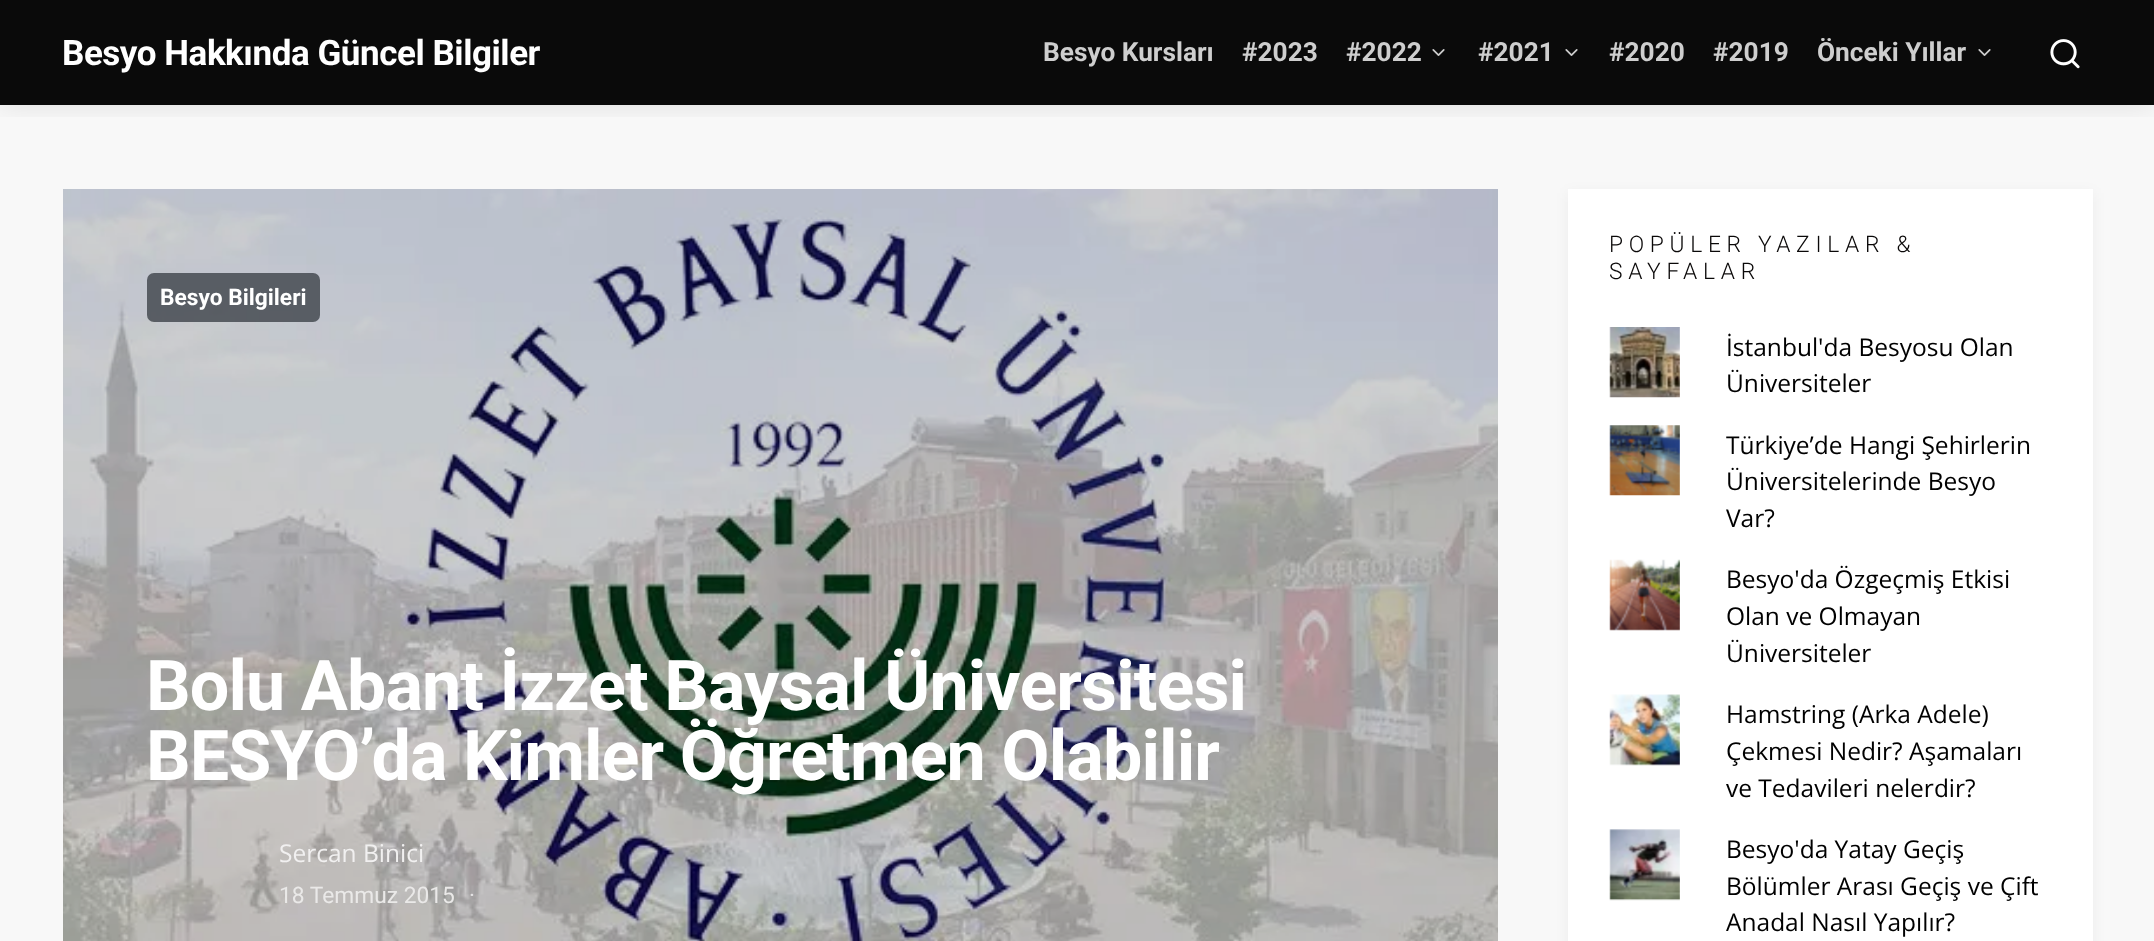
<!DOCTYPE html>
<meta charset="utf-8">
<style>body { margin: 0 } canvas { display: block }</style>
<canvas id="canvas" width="2154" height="941"></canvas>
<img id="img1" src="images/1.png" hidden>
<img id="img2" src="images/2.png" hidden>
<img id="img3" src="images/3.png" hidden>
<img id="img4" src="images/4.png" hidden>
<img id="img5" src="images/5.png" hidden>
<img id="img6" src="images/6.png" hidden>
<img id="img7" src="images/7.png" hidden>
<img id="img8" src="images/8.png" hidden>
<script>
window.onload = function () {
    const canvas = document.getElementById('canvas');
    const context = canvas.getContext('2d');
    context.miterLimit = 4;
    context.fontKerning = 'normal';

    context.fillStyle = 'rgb(248, 248, 248)';
    context.fillRect(0, 0, 2154, 941);
    context.fillStyle = 'rgb(10, 10, 10)';
    context.fillRect(0, 0, 2154, 105);
    context.save();
    context.beginPath();
    context.rect(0, 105, 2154, 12);
    context.clip();
    context.fillStyle = 'rgba(0, 0, 0, 0.1)';
    context.filter = 'blur(14px)';
    context.beginPath();
    context.rect(0, 0, 2154, 105);
    context.fill();
    context.filter = 'none';
    context.restore();
    context.drawImage(document.getElementById('img1'), 1432, 49, 13, 7);
    context.drawImage(document.getElementById('img1'), 1565, 49, 13, 7);
    context.drawImage(document.getElementById('img1'), 1978, 49, 13, 7);
    context.drawImage(document.getElementById('img2'), 2050, 39, 30, 30);
    context.drawImage(document.getElementById('img3'), 63, 189, 1435, 752);
    context.fillStyle = 'rgba(52, 58, 64, 0.75)';
    context.beginPath();
    context.roundRect(147, 273, 173, 49, 7);
    context.fill();
    context.fillStyle = 'rgba(0, 0, 0, 0.05)';
    context.filter = 'blur(7px)';
    context.beginPath();
    context.rect(1568, 193, 525, 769);
    context.fill();
    context.filter = 'none';
    context.fillStyle = 'rgb(255, 255, 255)';
    context.fillRect(1568, 189, 525, 752);
    context.drawImage(document.getElementById('img4'), 1609, 327, 71, 71);
    context.drawImage(document.getElementById('img5'), 1609, 425, 71, 71);
    context.drawImage(document.getElementById('img6'), 1609, 559, 71, 72);
    context.drawImage(document.getElementById('img7'), 1609, 694, 71, 72);
    context.drawImage(document.getElementById('img8'), 1609, 829, 71, 72);
    context.letterSpacing = '-0.45px';
    context.font = 'bold 35px Roboto';
    context.fillText('Besyo Hakkında Güncel Bilgiler', 62, 65);
    context.letterSpacing = '0px';
    context.font = 'bold 26.25px Roboto';
    context.fillStyle = 'rgb(206, 206, 206)';
    context.fillText('Besyo Kursları', 1043, 61);
    context.fillText('#2023', 1242, 61);
    context.fillText('#2022', 1346, 61);
    context.fillText('#2021', 1478, 61);
    context.fillText('#2020', 1609, 61);
    context.fillText('#2019', 1713, 61);
    context.fillText('Önceki Yıllar', 1817, 61);
    context.font = 'bold 22.75px Roboto';
    context.fillStyle = 'rgb(255, 255, 255)';
    context.fillText('Besyo Bilgileri', 160, 305);
    context.letterSpacing = '-0.9px';
    context.font = 'bold 70px Roboto';
    context.fillText('Bolu Abant İzzet Baysal Üniversitesi', 146, 710);
    context.fillText('BESYO’da Kimler Öğretmen Olabilir', 146, 780);
    context.letterSpacing = '0px';
    context.font = '24.5px Open Sans';
    context.fillStyle = 'rgb(241, 240, 240)';
    context.fillText('Sercan Binici', 279, 862);
    context.font = '22.75px Roboto';
    context.fillStyle = 'rgb(234, 233, 232)';
    context.fillText('18 Temmuz 2015', 279, 903);
    context.fillStyle = 'rgb(228, 227, 228)';
    context.fillText('·', 469, 903);
    context.letterSpacing = '5.7px';
    context.font = '300 22.75px Roboto';
    context.fillStyle = 'rgb(10, 8, 8)';
    context.fillText('POPÜLER YAZILAR &', 1609, 252);
    context.fillText('SAYFALAR', 1609, 279);
    context.letterSpacing = '0px';
    context.font = '24.5px Open Sans';
    context.fillStyle = 'rgb(0, 0, 0)';
    context.fillText('İstanbul\'da Besyosu Olan', 1726, 356);
    context.fillText('Üniversiteler', 1726, 392);
    context.fillText('Türkiye’de Hangi Şehirlerin', 1726, 454);
    context.fillText('Üniversitelerinde Besyo', 1726, 490);
    context.fillText('Var?', 1726, 527);
    context.fillText('Besyo\'da Özgeçmiş Etkisi', 1726, 588);
    context.fillText('Olan ve Olmayan', 1726, 625);
    context.fillText('Üniversiteler', 1726, 662);
    context.fillText('Hamstring (Arka Adele)', 1726, 723);
    context.fillText('Çekmesi Nedir? Aşamaları', 1726, 760);
    context.fillText('ve Tedavileri nelerdir?', 1726, 797);
    context.fillText('Besyo\'da Yatay Geçiş', 1726, 858);
    context.fillText('Bölümler Arası Geçiş ve Çift', 1726, 895);
    context.fillText('Anadal Nasıl Yapılır?', 1726, 931);
};
</script>
